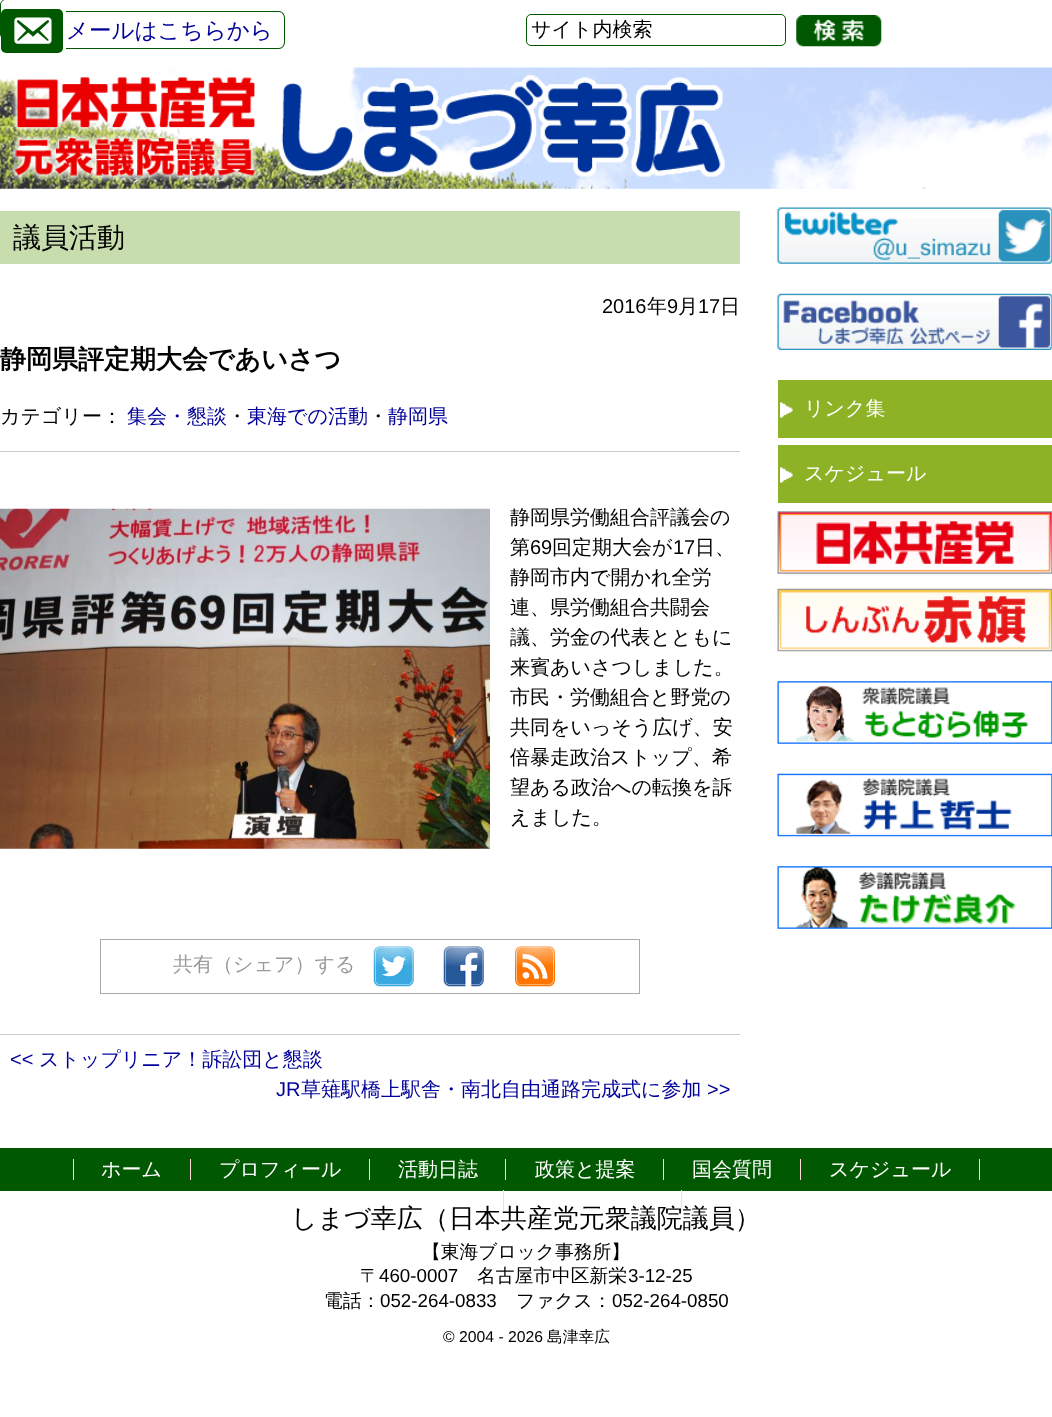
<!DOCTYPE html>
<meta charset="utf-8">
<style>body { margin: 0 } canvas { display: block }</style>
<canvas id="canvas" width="1052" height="1417"></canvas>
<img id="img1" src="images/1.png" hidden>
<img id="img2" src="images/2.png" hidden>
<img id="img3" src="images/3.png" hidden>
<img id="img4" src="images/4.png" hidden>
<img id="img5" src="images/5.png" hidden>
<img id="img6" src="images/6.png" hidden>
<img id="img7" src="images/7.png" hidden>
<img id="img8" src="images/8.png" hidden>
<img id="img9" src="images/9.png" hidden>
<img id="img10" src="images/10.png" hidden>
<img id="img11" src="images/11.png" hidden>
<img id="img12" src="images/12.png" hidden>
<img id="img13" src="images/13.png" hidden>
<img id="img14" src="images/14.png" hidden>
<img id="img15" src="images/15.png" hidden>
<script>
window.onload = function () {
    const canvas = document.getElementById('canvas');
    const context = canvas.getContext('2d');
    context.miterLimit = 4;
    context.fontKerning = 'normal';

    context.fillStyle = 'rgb(255, 255, 255)';
    context.fillRect(0, 0, 1052, 1417);
    context.fillStyle = 'rgb(0, 88, 0)';
    context.beginPath();
    context.moveTo(6, -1);
    context.lineTo(61, -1);
    context.lineTo(61, 40);
    context.lineTo(6, 40);
    context.bezierCurveTo(3, 40, 0, 37, 0, 34);
    context.lineTo(0, 5);
    context.bezierCurveTo(0, 2, 3, -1, 6, -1);
    context.closePath();
    context.moveTo(6, 0);
    context.lineTo(61, 0);
    context.lineTo(61, 39);
    context.lineTo(6, 39);
    context.bezierCurveTo(3, 39, 1, 37, 1, 34);
    context.lineTo(1, 5);
    context.bezierCurveTo(1, 2, 3, 0, 6, 0);
    context.closePath();
    context.fill('evenodd');
    context.beginPath();
    context.moveTo(66, 11);
    context.lineTo(279, 11);
    context.bezierCurveTo(282, 11, 285, 14, 285, 18);
    context.lineTo(285, 42);
    context.bezierCurveTo(285, 46, 282, 49, 279, 49);
    context.lineTo(66, 49);
    context.closePath();
    context.moveTo(66, 12);
    context.lineTo(279, 12);
    context.bezierCurveTo(282, 12, 284, 15, 284, 18);
    context.lineTo(284, 42);
    context.bezierCurveTo(284, 45, 282, 48, 279, 48);
    context.lineTo(66, 48);
    context.closePath();
    context.fill('evenodd');
    context.beginPath();
    context.roundRect(1, 9, 62, 44, 5);
    context.fill();
    context.drawImage(document.getElementById('img1'), 14, 17, 38, 27);
    context.beginPath();
    context.roundRect(526.5, 14.5, 259, 31, 4.5);
    context.strokeStyle = 'rgb(0, 88, 0)';
    context.stroke();
    context.drawImage(document.getElementById('img2'), 796, 15, 86, 32);
    context.drawImage(document.getElementById('img3'), 0, 67, 1052, 122);
    context.fillStyle = 'rgb(199, 221, 174)';
    context.fillRect(0, 211, 740, 53);
    context.fillStyle = 'rgb(204, 204, 204)';
    context.fillRect(0, 451, 740, 1);
    context.drawImage(document.getElementById('img4'), 0, 508, 490, 341);
    context.strokeStyle = 'rgb(170, 170, 170)';
    context.strokeRect(100.5, 939.5, 539, 54);
    context.drawImage(document.getElementById('img5'), 373, 946, 41, 41);
    context.drawImage(document.getElementById('img6'), 443, 946, 41, 41);
    context.drawImage(document.getElementById('img7'), 515, 946, 40, 41);
    context.fillRect(0, 1034, 740, 1);
    context.drawImage(document.getElementById('img8'), 777, 207, 275, 57);
    context.drawImage(document.getElementById('img9'), 777, 293, 275, 57);
    context.fillStyle = 'rgb(142, 178, 37)';
    context.fillRect(778, 380, 274, 58);
    context.drawImage(document.getElementById('img10'), 780, 402, 13, 16);
    context.fillRect(778, 445, 274, 58);
    context.drawImage(document.getElementById('img10'), 780, 467, 13, 16);
    context.drawImage(document.getElementById('img11'), 777, 511, 275, 63);
    context.drawImage(document.getElementById('img12'), 777, 588, 275, 64);
    context.drawImage(document.getElementById('img13'), 777, 681, 275, 63);
    context.drawImage(document.getElementById('img14'), 777, 773, 275, 64);
    context.drawImage(document.getElementById('img15'), 777, 866, 275, 63);
    context.fillStyle = 'rgb(0, 88, 0)';
    context.fillRect(0, 1148, 1052, 43);
    context.fillStyle = 'rgb(250, 219, 216)';
    context.fillRect(190, 1159, 1, 21);
    context.fillRect(73, 1159, 1, 21);
    context.fillRect(369, 1159, 1, 21);
    context.fillRect(505, 1159, 1, 21);
    context.fillRect(663, 1159, 1, 21);
    context.fillRect(800, 1159, 1, 21);
    context.fillRect(979, 1159, 1, 21);
    context.fillRect(503, 1190, 1, 21);
    context.fillRect(681, 1190, 1, 21);
    context.font = '500 22.5px WenQuanYi Zen Hei';
    context.fillStyle = 'rgb(0, 0, 153)';
    context.fillText('メールはこちらから', 66, 38);
    context.font = '500 20px WenQuanYi Zen Hei';
    context.fillStyle = 'rgb(0, 0, 0)';
    context.fillText('サイト内検索', 531, 36);
    context.font = '500 28px WenQuanYi Zen Hei';
    context.fillText('議員活動', 13, 247);
    context.font = '20px Liberation Sans';
    context.fillText('2016', 602, 313);
    context.font = '500 20px WenQuanYi Zen Hei';
    context.fillText('年', 647, 313);
    context.font = '20px Liberation Sans';
    context.fillText('9', 667, 313);
    context.font = '500 20px WenQuanYi Zen Hei';
    context.fillText('月', 678, 313);
    context.font = '20px Liberation Sans';
    context.fillText('17', 698, 313);
    context.font = '500 20px WenQuanYi Zen Hei';
    context.fillText('日', 720, 313);
    context.font = 'bold 26px WenQuanYi Zen Hei';
    context.fillText('静岡県評定期大会であいさつ', 0, 368);
    context.font = '500 20px WenQuanYi Zen Hei';
    context.fillText('カテゴリー：', 0, 423);
    context.fillStyle = 'rgb(0, 0, 153)';
    context.fillText('集会・懇談', 127, 423);
    context.fillStyle = 'rgb(0, 0, 0)';
    context.fillText('・', 227, 423);
    context.fillStyle = 'rgb(0, 0, 153)';
    context.fillText('東海での活動', 247, 423);
    context.fillStyle = 'rgb(0, 0, 0)';
    context.fillText('・', 368, 423);
    context.fillStyle = 'rgb(0, 0, 153)';
    context.fillText('静岡県', 388, 423);
    context.fillStyle = 'rgb(0, 0, 0)';
    context.fillText('静岡県労働組合評議会の', 510, 524);
    context.fillText('第', 510, 554);
    context.font = '20px Liberation Sans';
    context.fillText('69', 530, 554);
    context.font = '500 20px WenQuanYi Zen Hei';
    context.fillText('回定期大会が', 552, 554);
    context.font = '20px Liberation Sans';
    context.fillText('17', 673, 554);
    context.font = '500 20px WenQuanYi Zen Hei';
    context.fillText('日、', 695, 554);
    context.fillText('静岡市内で開かれ全労', 510, 584);
    context.fillText('連、県労働組合共闘会', 510, 614);
    context.fillText('議、労金の代表とともに', 510, 644);
    context.fillText('来賓あいさつしました。', 510, 674);
    context.fillText('市民・労働組合と野党の', 510, 704);
    context.fillText('共同をいっそう広げ、安', 510, 734);
    context.fillText('倍暴走政治ストップ、希', 510, 764);
    context.fillText('望ある政治への転換を訴', 510, 794);
    context.fillText('えました。', 510, 824);
    context.fillStyle = 'rgb(153, 153, 153)';
    context.fillText('共有（シェア）する', 173, 971);
    context.font = '20px Liberation Sans';
    context.fillStyle = 'rgb(0, 0, 153)';
    context.fillText('<<', 10, 1066);
    context.font = '500 20px WenQuanYi Zen Hei';
    context.fillText('ストップリニア！訴訟団と懇談', 39, 1066);
    context.font = '20px Liberation Sans';
    context.fillText('JR', 276, 1096);
    context.font = '500 20px WenQuanYi Zen Hei';
    context.fillText('草薙駅橋上駅舎・南北自由通路完成式に参加', 301, 1096);
    context.font = '20px Liberation Sans';
    context.fillText('>>', 707, 1096);
    context.font = '500 20px WenQuanYi Zen Hei';
    context.fillStyle = 'rgb(255, 255, 255)';
    context.fillText('リンク集', 804, 415);
    context.fillText('スケジュール', 804, 480);
    context.fillText('ホーム', 101, 1176);
    context.fillText('プロフィール', 219, 1176);
    context.fillText('活動日誌', 398, 1176);
    context.fillText('政策と提案', 535, 1176);
    context.fillText('国会質問', 692, 1176);
    context.fillText('スケジュール', 829, 1176);
    context.font = '500 26px WenQuanYi Zen Hei';
    context.fillStyle = 'rgb(0, 0, 0)';
    context.fillText('しまづ幸広（日本共産党元衆議院議員）', 291, 1227);
    context.font = '500 18.75px WenQuanYi Zen Hei';
    context.fillText('【東海ブロック事務所】', 422, 1258);
    context.fillText('〒', 360, 1282);
    context.font = '18.75px Liberation Sans';
    context.fillText('460-0007', 379, 1282);
    context.font = '500 18.75px WenQuanYi Zen Hei';
    context.fillText('名古屋市中区新栄', 477, 1282);
    context.font = '18.75px Liberation Sans';
    context.fillText('3-12-25', 628, 1282);
    context.font = '500 18.75px WenQuanYi Zen Hei';
    context.fillText('電話：', 324, 1307);
    context.font = '18.75px Liberation Sans';
    context.fillText('052-264-0833', 380, 1307);
    context.font = '500 18.75px WenQuanYi Zen Hei';
    context.fillText('ファクス：', 516, 1307);
    context.font = '18.75px Liberation Sans';
    context.fillText('052-264-0850', 612, 1307);
    context.font = '15.75px Liberation Sans';
    context.fillText('© 2004 - 2026', 443, 1342);
    context.font = '500 15.75px WenQuanYi Zen Hei';
    context.fillText('島津幸広', 547, 1342);
};
</script>
